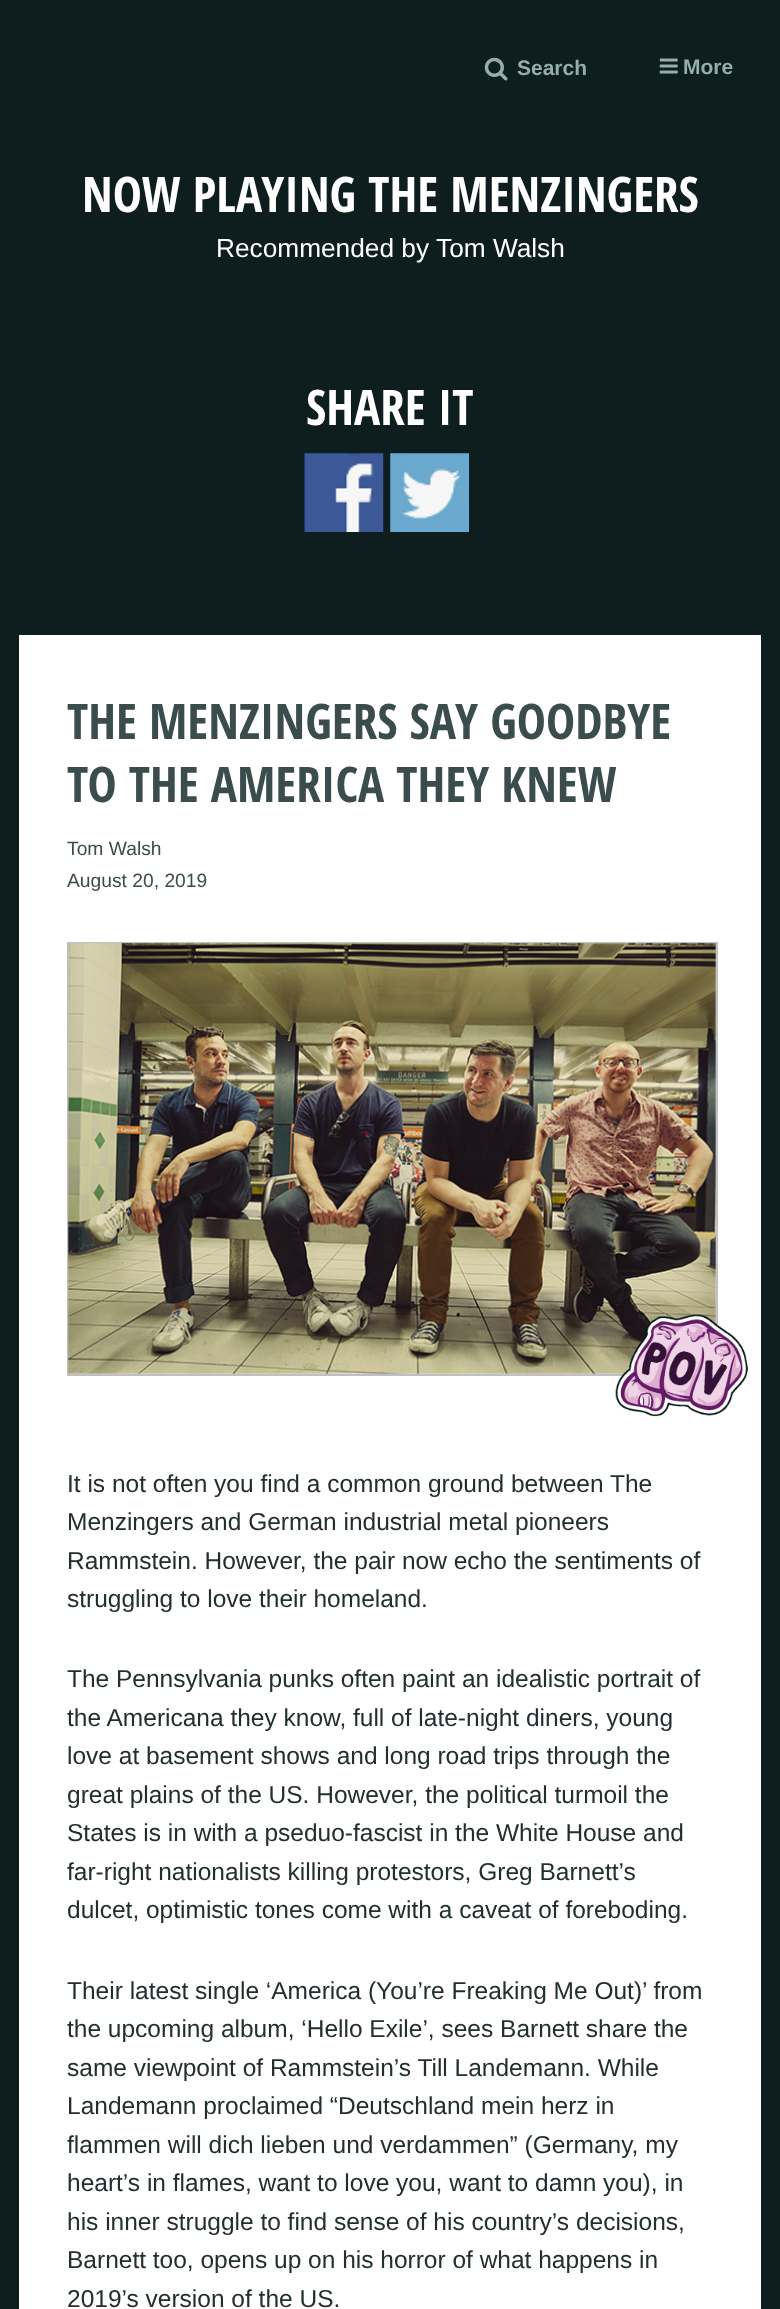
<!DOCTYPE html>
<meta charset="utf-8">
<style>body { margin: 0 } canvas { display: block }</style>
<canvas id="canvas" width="780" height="2309"></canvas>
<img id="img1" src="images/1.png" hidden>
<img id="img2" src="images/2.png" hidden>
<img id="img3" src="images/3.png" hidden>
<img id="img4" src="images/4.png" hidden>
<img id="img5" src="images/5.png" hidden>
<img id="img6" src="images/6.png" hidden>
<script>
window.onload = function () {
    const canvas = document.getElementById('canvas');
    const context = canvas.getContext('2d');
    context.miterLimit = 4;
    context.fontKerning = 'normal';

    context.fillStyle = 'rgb(14, 30, 31)';
    context.fillRect(0, 0, 780, 2309);
    context.drawImage(document.getElementById('img1'), 484, 57, 24, 24);
    context.drawImage(document.getElementById('img2'), 659, 58, 19, 16);
    context.drawImage(document.getElementById('img3'), 304, 453, 80, 79);
    context.drawImage(document.getElementById('img4'), 390, 453, 79, 79);
    context.fillStyle = 'rgb(255, 255, 255)';
    context.fillRect(19, 635, 742, 1674);
    context.strokeStyle = 'rgb(192, 192, 192)';
    context.lineWidth = 2;
    context.strokeRect(68, 943, 649, 432);
    context.drawImage(document.getElementById('img5'), 68, 943, 648, 431);
    context.drawImage(document.getElementById('img6'), 615, 1314, 133, 103);
    context.font = 'bold 21px Liberation Sans';
    context.fillStyle = 'rgb(150, 173, 174)';
    context.fillText('Search', 517, 75);
    context.fillText('More', 683, 74);
    context.font = 'bold 49px Open Sans Condensed';
    context.fillStyle = 'rgb(255, 255, 255)';
    context.fillText('NOW PLAYING THE MENZINGERS', 82, 212);
    context.font = '26.25px Liberation Sans';
    context.fillText('Recommended by', 216, 257);
    context.fillText('Tom Walsh', 436, 257);
    context.font = 'bold 49px Open Sans Condensed';
    context.fillText('SHARE IT', 306, 425);
    context.fillStyle = 'rgb(59, 76, 77)';
    context.fillText('THE MENZINGERS SAY GOODBYE', 67, 739);
    context.fillText('TO THE AMERICA THEY KNEW', 67, 802);
    context.font = '19.25px Liberation Sans';
    context.fillText('Tom Walsh', 67, 855);
    context.fillText('August 20, 2019', 67, 887);
    context.font = '24.5px Liberation Sans';
    context.fillStyle = 'rgb(35, 47, 47)';
    context.fillText('It is not often you find a common ground between The', 67, 1492);
    context.fillText('Menzingers and German industrial metal pioneers', 67, 1530);
    context.fillText('Rammstein. However, the pair now echo the sentiments of', 67, 1569);
    context.fillText('struggling to love their homeland.', 67, 1607);
    context.fillText('The Pennsylvania punks often paint an idealistic portrait of', 67, 1687);
    context.fillText('the Americana they know, full of late-night diners, young', 67, 1726);
    context.fillText('love at basement shows and long road trips through the', 67, 1764);
    context.fillText('great plains of the US. However, the political turmoil the', 67, 1803);
    context.fillText('States is in with a pseduo-fascist in the White House and', 67, 1841);
    context.fillText('far-right nationalists killing protestors, Greg Barnett’s', 67, 1880);
    context.fillText('dulcet, optimistic tones come with a caveat of foreboding.', 67, 1918);
    context.fillText('Their latest single ‘America (You’re Freaking Me Out)’ from', 67, 1999);
    context.fillText('the upcoming album, ‘Hello Exile’, sees Barnett share the', 67, 2037);
    context.fillText('same viewpoint of Rammstein’s Till Landemann. While', 67, 2076);
    context.fillText('Landemann proclaimed “Deutschland mein herz in', 67, 2114);
    context.fillText('flammen will dich lieben und verdammen” (Germany, my', 67, 2153);
    context.fillText('heart’s in flames, want to love you, want to damn you), in', 67, 2191);
    context.fillText('his inner struggle to find sense of his country’s decisions,', 67, 2230);
    context.fillText('Barnett too, opens up on his horror of what happens in', 67, 2268);
    context.fillText('2019’s version of the US.', 67, 2307);
};
</script>
